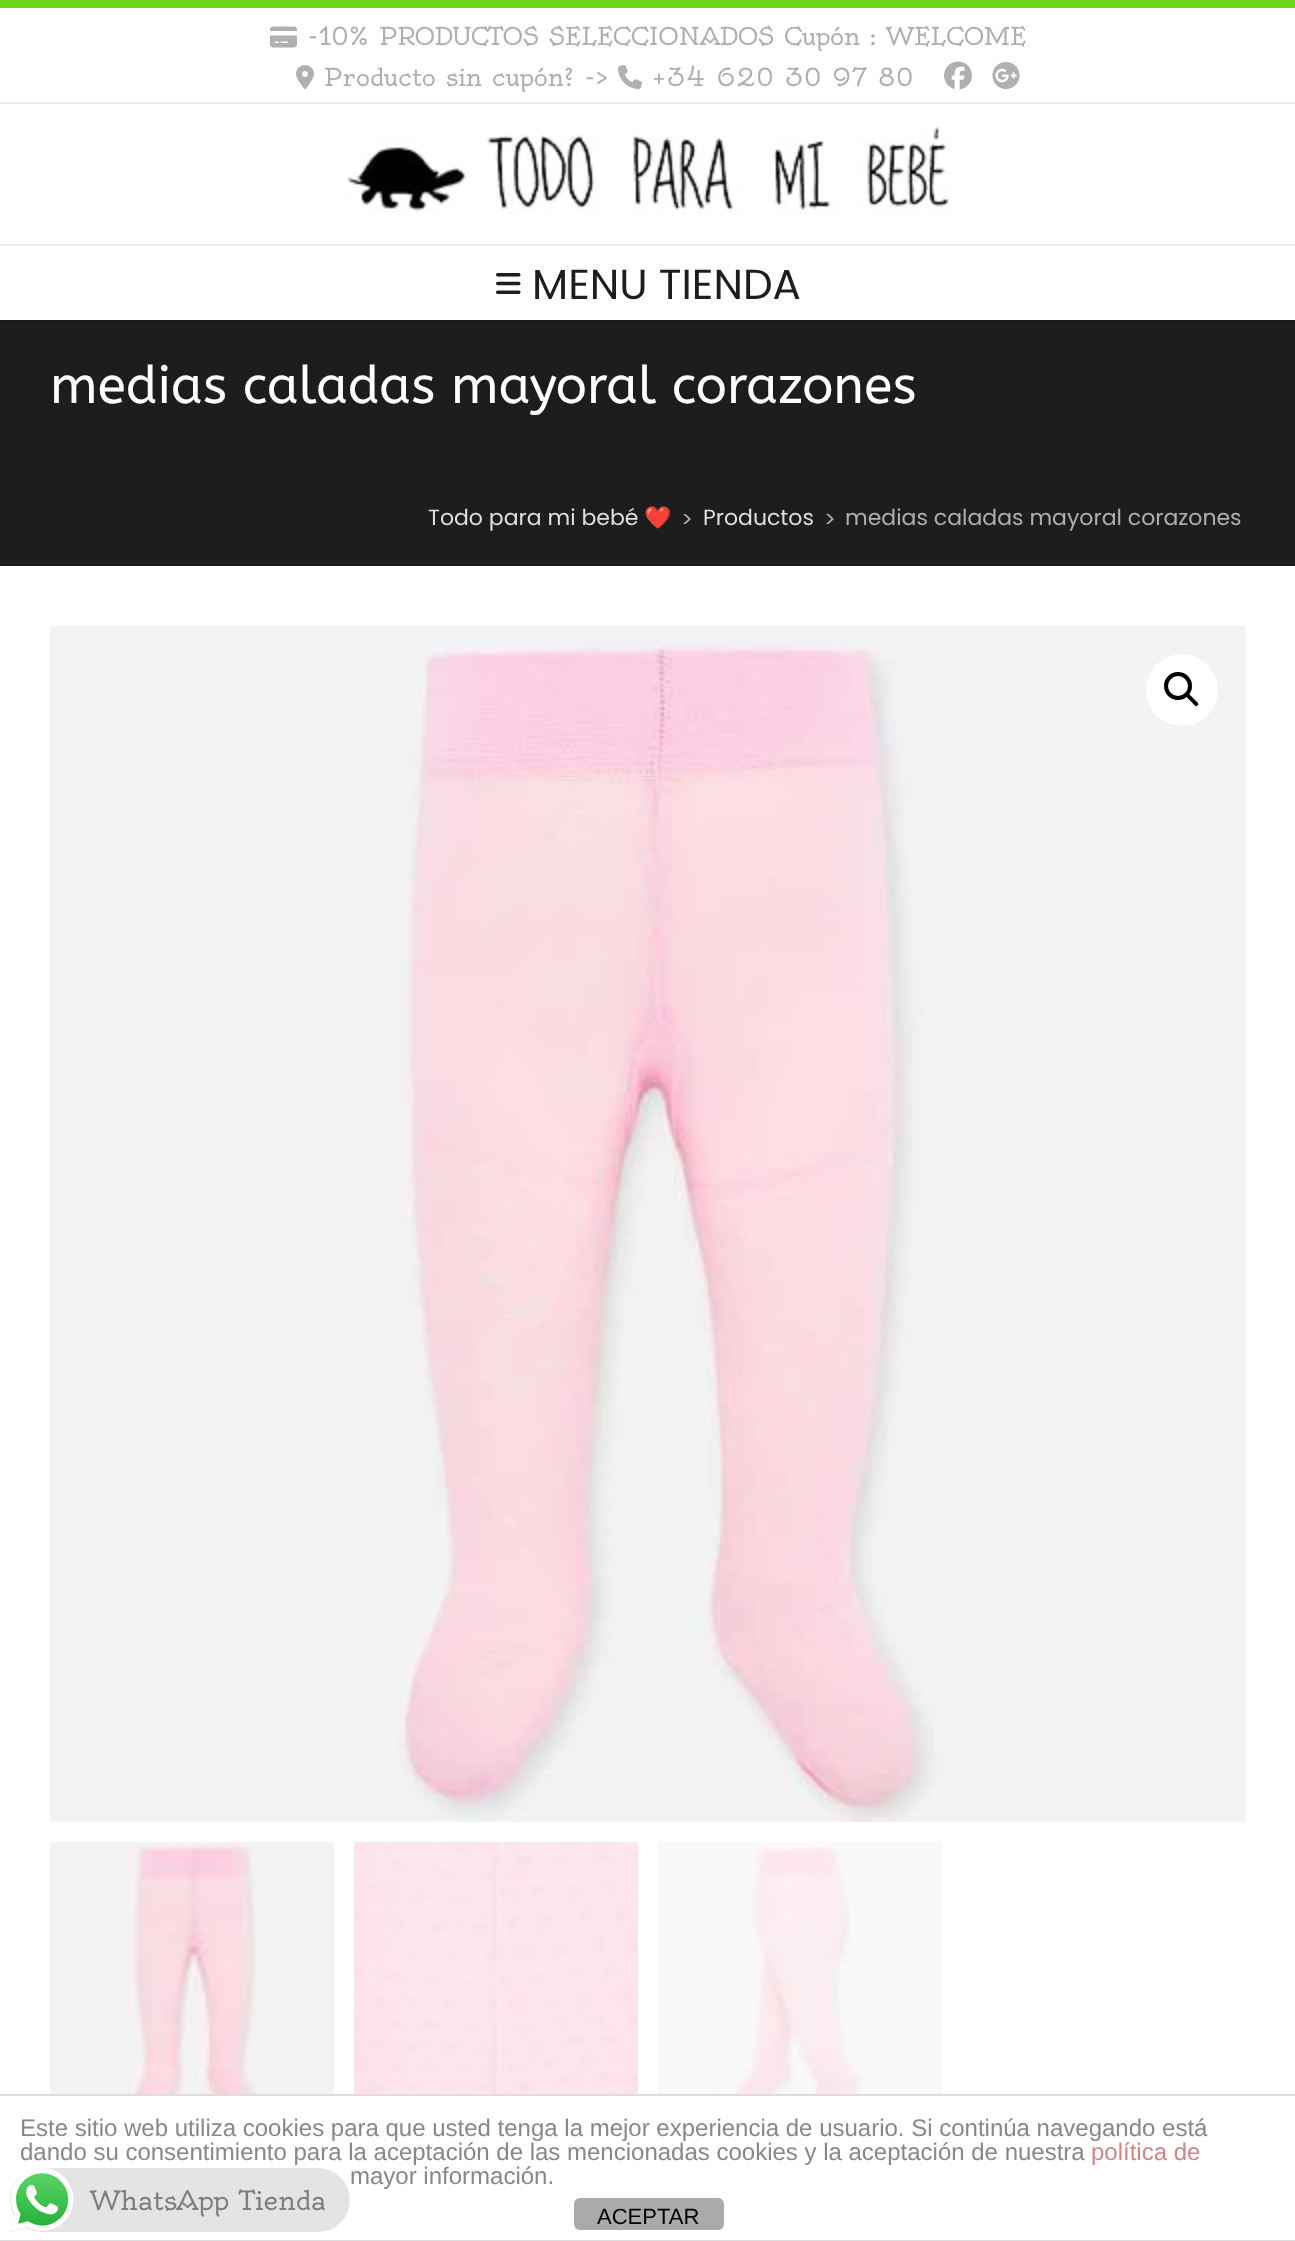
<!DOCTYPE html>
<meta charset="utf-8">
<style>body { margin: 0 } canvas { display: block }</style>
<canvas id="canvas" width="1295" height="2241"></canvas>
<img id="img1" src="images/1.png" hidden>
<img id="img2" src="images/2.png" hidden>
<img id="img3" src="images/3.png" hidden>
<img id="img4" src="images/4.png" hidden>
<img id="img5" src="images/5.png" hidden>
<img id="img6" src="images/6.png" hidden>
<img id="img7" src="images/7.png" hidden>
<img id="img8" src="images/8.png" hidden>
<img id="img9" src="images/9.png" hidden>
<img id="img10" src="images/10.png" hidden>
<img id="img11" src="images/11.png" hidden>
<img id="img12" src="images/12.png" hidden>
<script>
window.onload = function () {
    const canvas = document.getElementById('canvas');
    const context = canvas.getContext('2d');
    context.miterLimit = 4;
    context.fontKerning = 'normal';

    context.fillStyle = 'rgb(255, 255, 255)';
    context.fillRect(0, 0, 1295, 2241);
    context.fillStyle = 'rgb(26, 26, 26)';
    context.fillRect(0, 320, 1295, 2);
    context.fillStyle = 'rgb(106, 214, 29)';
    context.fillRect(0, 0, 1295, 8);
    context.fillStyle = 'rgb(235, 235, 235)';
    context.fillRect(0, 102, 1295, 2);
    context.drawImage(document.getElementById('img1'), 270, 26, 27, 22);
    context.drawImage(document.getElementById('img2'), 296, 65, 18, 24);
    context.drawImage(document.getElementById('img3'), 618, 65, 24, 24);
    context.drawImage(document.getElementById('img4'), 944, 61, 28, 29);
    context.drawImage(document.getElementById('img5'), 992, 62, 28, 27);
    context.fillRect(0, 244, 1295, 2);
    context.drawImage(document.getElementById('img6'), 346, 127, 604, 87);
    context.drawImage(document.getElementById('img7'), 496, 273, 25, 21);
    context.fillStyle = 'rgb(29, 29, 29)';
    context.fillRect(0, 322, 1295, 242);
    context.fillStyle = 'rgb(27, 27, 27)';
    context.fillRect(0, 564, 1295, 2);
    context.drawImage(document.getElementById('img8'), 50, 626, 1196, 1196);
    context.fillStyle = 'rgb(255, 255, 255)';
    context.beginPath();
    context.arc(1182, 690, 36, 0, 2 * Math.PI);
    context.fill();
    context.beginPath();
    context.arc(1178, 686, 12, 0, 2 * Math.PI);
    context.strokeStyle = 'rgb(0, 0, 0)';
    context.lineWidth = 4;
    context.stroke();
    context.fillStyle = 'rgb(0, 0, 0)';
    context.beginPath();
    context.moveTo(1186.5, 694);
    context.bezierCurveTo(1187, 693.5, 1188.5, 693.5, 1189, 694);
    context.lineTo(1197.5, 702.5);
    context.bezierCurveTo(1198.5, 703.5, 1198.5, 705, 1197.5, 705.5);
    context.bezierCurveTo(1197, 706.5, 1195.5, 706.5, 1195, 705.5);
    context.lineTo(1186.5, 697);
    context.bezierCurveTo(1185.5, 696.5, 1185.5, 695, 1186.5, 694);
    context.closePath();
    context.fill();
    context.drawImage(document.getElementById('img9'), 50, 1842, 284, 252);
    context.drawImage(document.getElementById('img10'), 354, 1842, 284, 252);
    context.drawImage(document.getElementById('img11'), 658, 1842, 284, 252);
    context.fillStyle = 'rgb(221, 221, 221)';
    context.fillRect(0, 2094, 1295, 2);
    context.fillRect(0, 2240, 1295, 1);
    context.fillStyle = 'rgb(170, 170, 170)';
    context.beginPath();
    context.roundRect(574, 2198, 150, 32, 6);
    context.fill();
    context.fillStyle = 'rgb(228, 228, 228)';
    context.beginPath();
    context.roundRect(10, 2168, 340, 64, 32);
    context.fill();
    context.drawImage(document.getElementById('img12'), 10, 2168, 64, 64);
    context.font = '24px Oldenburg';
    context.fillStyle = 'rgb(175, 175, 175)';
    context.fillText('-10% PRODUCTOS SELECCIONADOS Cupón : WELCOME', 307, 45);
    context.fillText('Producto sin cupón? ->', 324, 86);
    context.fillText('+34 620 30 97 80', 652, 86);
    context.font = '42px Poppins';
    context.fillStyle = 'rgb(29, 29, 29)';
    context.fillText('MENU TIENDA', 532, 299);
    context.font = '52px ABeeZee';
    context.fillStyle = 'rgb(255, 255, 255)';
    context.fillText('medias caladas mayoral corazones', 50, 403);
    context.font = '22px Poppins';
    context.fillStyle = 'rgb(223, 223, 223)';
    context.fillText('Todo para mi bebé', 428, 525);
    context.font = '22px Noto Color Emoji';
    context.fillText('❤️', 644, 525);
    context.font = '22px Poppins';
    context.fillStyle = 'rgb(175, 175, 175)';
    context.fillText('>', 681, 527);
    context.fillStyle = 'rgb(223, 223, 223)';
    context.fillText('Productos', 703, 525);
    context.fillStyle = 'rgb(175, 175, 175)';
    context.fillText('>', 824, 527);
    context.fillText('medias caladas mayoral corazones', 845, 525);
    context.font = '24px Liberation Sans';
    context.fillStyle = 'rgb(136, 136, 136)';
    context.fillText('Este sitio web utiliza cookies para que usted tenga la mejor experiencia de usuario. Si continúa navegando está', 20, 2136);
    context.fillText('dando su consentimiento para la aceptación de las mencionadas cookies y la aceptación de nuestra', 20, 2160);
    context.fillStyle = 'rgb(204, 136, 136)';
    context.fillText('política de', 1091, 2160);
    context.fillStyle = 'rgb(136, 136, 136)';
    context.fillText('mayor información.', 350, 2184);
    context.font = '22px Liberation Sans';
    context.fillStyle = 'rgb(0, 0, 0)';
    context.fillText('ACEPTAR', 597, 2224);
    context.font = '26px Oldenburg';
    context.fillStyle = 'rgb(127, 125, 125)';
    context.fillText('WhatsApp Tienda', 90, 2210);
};
</script>
